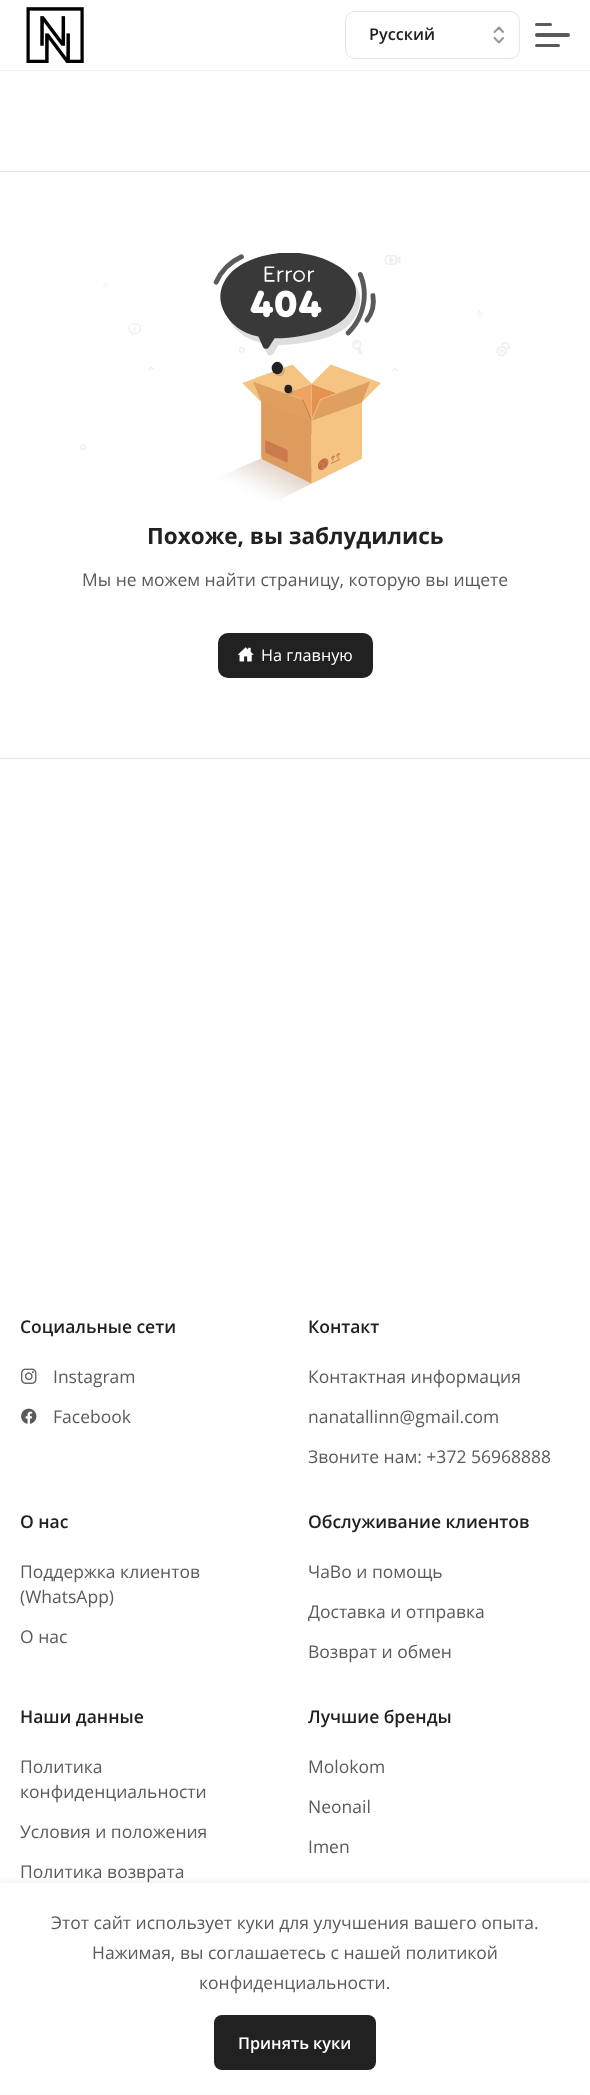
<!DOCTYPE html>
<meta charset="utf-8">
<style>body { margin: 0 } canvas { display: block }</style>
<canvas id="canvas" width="590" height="2095"></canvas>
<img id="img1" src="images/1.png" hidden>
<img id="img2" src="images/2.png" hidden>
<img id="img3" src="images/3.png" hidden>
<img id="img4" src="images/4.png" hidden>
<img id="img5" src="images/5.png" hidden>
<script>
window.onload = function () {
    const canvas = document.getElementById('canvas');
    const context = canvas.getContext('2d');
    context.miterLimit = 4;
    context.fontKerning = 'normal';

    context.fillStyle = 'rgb(255, 255, 255)';
    context.fillRect(0, 0, 590, 2095);
    context.fillStyle = 'rgb(241, 241, 241)';
    context.fillRect(0, 70, 590, 1);
    context.drawImage(document.getElementById('img1'), 26, 7, 58, 56);
    context.beginPath();
    context.roundRect(345.5, 11.5, 174, 47, 9.5);
    context.strokeStyle = 'rgb(230, 230, 230)';
    context.stroke();
    context.beginPath();
    context.moveTo(494.5, 32);
    context.lineTo(499, 27.5);
    context.lineTo(503, 32);
    context.moveTo(503, 38);
    context.lineTo(499, 42.5);
    context.lineTo(494.5, 38);
    context.strokeStyle = 'rgb(153, 153, 153)';
    context.lineWidth = 2.1;
    context.lineCap = 'round';
    context.lineJoin = 'round';
    context.stroke();
    context.fillStyle = 'rgb(90, 90, 90)';
    context.beginPath();
    context.roundRect(535, 23, 17, 3, 1.5);
    context.fill();
    context.beginPath();
    context.roundRect(535, 33, 35, 4, 2);
    context.fill();
    context.beginPath();
    context.roundRect(535, 44, 25, 3, 1.5);
    context.fill();
    context.fillStyle = 'rgb(230, 230, 230)';
    context.fillRect(0, 171, 590, 1);
    context.fillRect(0, 758, 590, 1);
    context.drawImage(document.getElementById('img2'), 80, 253, 430, 248);
    context.fillStyle = 'rgb(33, 33, 33)';
    context.beginPath();
    context.roundRect(218, 633, 155, 45, 10);
    context.fill();
    context.drawImage(document.getElementById('img3'), 238, 647, 16, 15);
    context.drawImage(document.getElementById('img4'), 21, 1368, 16, 16);
    context.drawImage(document.getElementById('img5'), 21, 1408, 16, 16);
    context.fillStyle = 'rgba(0, 0, 0, 0.04)';
    context.filter = 'blur(2px)';
    context.beginPath();
    context.rect(0, 1880, 590, 213);
    context.fill();
    context.filter = 'none';
    context.fillStyle = 'rgb(255, 255, 255)';
    context.fillRect(0, 1883, 590, 211);
    context.fillStyle = 'rgb(33, 33, 33)';
    context.beginPath();
    context.roundRect(214, 2015, 162, 55, 8);
    context.fill();
    context.font = '600 16.25px Open Sans';
    context.fillText('Русский', 369, 40);
    context.font = 'bold 22.5px Open Sans';
    context.fillText('Похоже, вы заблудились', 147, 544);
    context.font = '17.5px Open Sans';
    context.fillStyle = 'rgb(90, 90, 90)';
    context.fillText('Мы не можем найти страницу, которую вы ищете', 82, 586);
    context.font = '16.25px Open Sans';
    context.fillStyle = 'rgb(255, 255, 255)';
    context.fillText('На главную', 261, 661);
    context.font = '600 17.5px Open Sans';
    context.fillStyle = 'rgb(33, 33, 33)';
    context.fillText('Социальные сети', 20, 1333);
    context.font = '17.5px Open Sans';
    context.fillStyle = 'rgb(90, 90, 90)';
    context.fillText('Instagram', 53, 1383);
    context.fillText('Facebook', 53, 1423);
    context.font = '600 17.5px Open Sans';
    context.fillStyle = 'rgb(33, 33, 33)';
    context.fillText('Контакт', 308, 1333);
    context.font = '17.5px Open Sans';
    context.fillStyle = 'rgb(90, 90, 90)';
    context.fillText('Контактная информация', 308, 1383);
    context.fillText('nanatallinn@gmail.com', 308, 1423);
    context.fillText('Звоните нам: +372 56968888', 308, 1463);
    context.font = '600 17.5px Open Sans';
    context.fillStyle = 'rgb(33, 33, 33)';
    context.fillText('О нас', 20, 1528);
    context.font = '17.5px Open Sans';
    context.fillStyle = 'rgb(90, 90, 90)';
    context.fillText('Поддержка клиентов', 20, 1578);
    context.fillText('(WhatsApp)', 20, 1603);
    context.fillText('О нас', 20, 1643);
    context.font = '600 17.5px Open Sans';
    context.fillStyle = 'rgb(33, 33, 33)';
    context.fillText('Обслуживание клиентов', 308, 1528);
    context.font = '17.5px Open Sans';
    context.fillStyle = 'rgb(90, 90, 90)';
    context.fillText('ЧаВо и помощь', 308, 1578);
    context.fillText('Доставка и отправка', 308, 1618);
    context.fillText('Возврат и обмен', 308, 1658);
    context.font = '600 17.5px Open Sans';
    context.fillStyle = 'rgb(33, 33, 33)';
    context.fillText('Наши данные', 20, 1723);
    context.font = '17.5px Open Sans';
    context.fillStyle = 'rgb(90, 90, 90)';
    context.fillText('Политика', 20, 1773);
    context.fillText('конфиденциальности', 20, 1798);
    context.fillText('Условия и положения', 20, 1838);
    context.fillText('Политика возврата', 20, 1878);
    context.font = '600 17.5px Open Sans';
    context.fillStyle = 'rgb(33, 33, 33)';
    context.fillText('Лучшие бренды', 308, 1723);
    context.font = '17.5px Open Sans';
    context.fillStyle = 'rgb(90, 90, 90)';
    context.fillText('Molokom', 308, 1773);
    context.fillText('Neonail', 308, 1813);
    context.fillText('Imen', 308, 1853);
    context.fillText('Этот сайт использует куки для улучшения вашего опыта.', 51, 1929);
    context.fillText('Нажимая, вы соглашаетесь с нашей политикой', 92, 1959);
    context.fillText('конфиденциальности.', 199, 1989);
    context.font = '600 16.25px Open Sans';
    context.fillStyle = 'rgb(255, 255, 255)';
    context.fillText('Принять куки', 238, 2049);
};
</script>
